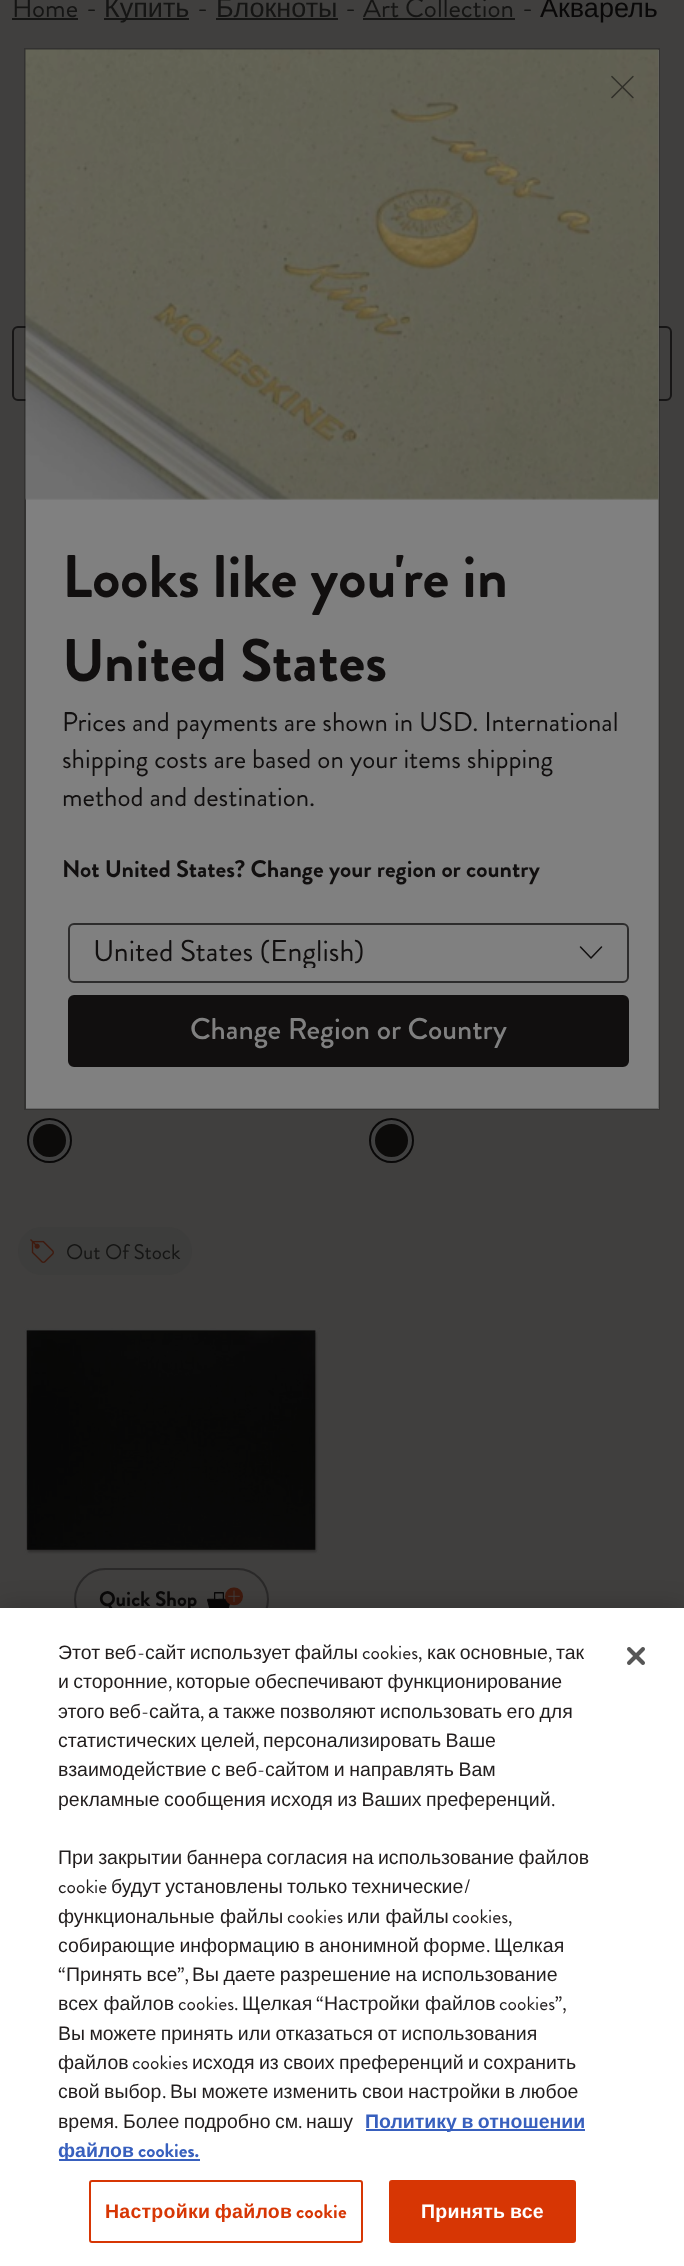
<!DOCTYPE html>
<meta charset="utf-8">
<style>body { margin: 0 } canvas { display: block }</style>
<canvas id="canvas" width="684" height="2266"></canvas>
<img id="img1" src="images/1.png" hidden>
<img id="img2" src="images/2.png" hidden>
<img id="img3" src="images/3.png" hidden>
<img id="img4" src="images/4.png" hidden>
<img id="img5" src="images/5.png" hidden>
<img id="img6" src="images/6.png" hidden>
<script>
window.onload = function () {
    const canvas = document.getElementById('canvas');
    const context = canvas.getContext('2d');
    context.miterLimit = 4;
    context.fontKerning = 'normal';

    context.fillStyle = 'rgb(64, 63, 62)';
    context.fillRect(0, 0, 684, 2266);
    context.fillStyle = 'rgb(21, 21, 20)';
    context.fillRect(12, 18, 66, 2);
    context.fillRect(104, 18, 85, 2);
    context.fillRect(216, 18, 122, 2);
    context.fillRect(363, 18, 152, 2);
    context.beginPath();
    context.roundRect(13, 327, 316, 73, 5);
    context.strokeStyle = 'rgb(23, 22, 22)';
    context.lineWidth = 2;
    context.stroke();
    context.beginPath();
    context.roundRect(355, 327, 316, 73, 5);
    context.stroke();
    context.fillStyle = 'rgb(12, 11, 10)';
    context.beginPath();
    context.arc(49.5, 1140.5, 19.5, 0, 2 * Math.PI);
    context.fill();
    context.strokeStyle = 'rgb(64, 64, 64)';
    context.lineWidth = 6;
    context.stroke();
    context.beginPath();
    context.arc(49.5, 1140.5, 21.5, 0, 2 * Math.PI);
    context.strokeStyle = 'rgb(9, 8, 8)';
    context.lineWidth = 2;
    context.stroke();
    context.beginPath();
    context.arc(391.5, 1140.5, 19.5, 0, 2 * Math.PI);
    context.fill();
    context.strokeStyle = 'rgb(64, 64, 64)';
    context.lineWidth = 6;
    context.stroke();
    context.beginPath();
    context.arc(391.5, 1140.5, 21.5, 0, 2 * Math.PI);
    context.strokeStyle = 'rgb(9, 8, 8)';
    context.lineWidth = 2;
    context.stroke();
    context.fillStyle = 'rgb(61, 61, 60)';
    context.beginPath();
    context.roundRect(18, 1227, 174, 48, 24);
    context.fill();
    context.drawImage(document.getElementById('img1'), 30, 1239, 24, 24);
    context.drawImage(document.getElementById('img2'), 24, 1327, 296, 228);
    context.beginPath();
    context.roundRect(75, 1569, 193, 61, 30.5);
    context.strokeStyle = 'rgb(42, 41, 41)';
    context.stroke();
    context.drawImage(document.getElementById('img3'), 207, 1587, 36, 21);
    context.fillStyle = 'rgb(128, 128, 128)';
    context.fillRect(26, 50, 633, 1059);
    context.strokeStyle = 'rgba(0, 0, 0, 0.2)';
    context.strokeRect(25, 49, 634, 1060);
    context.drawImage(document.getElementById('img4'), 25, 49, 634, 451);
    context.drawImage(document.getElementById('img5'), 611, 75, 23, 24);
    context.beginPath();
    context.moveTo(580.5, 947);
    context.lineTo(591, 958);
    context.lineTo(601.5, 947);
    context.strokeStyle = 'rgb(17, 15, 15)';
    context.lineWidth = 1.5;
    context.lineCap = 'round';
    context.lineJoin = 'round';
    context.stroke();
    context.beginPath();
    context.roundRect(69, 924, 559, 58, 5);
    context.strokeStyle = 'rgb(45, 44, 44)';
    context.lineWidth = 2;
    context.lineJoin = 'miter';
    context.stroke();
    context.fillStyle = 'rgb(17, 15, 15)';
    context.beginPath();
    context.roundRect(69, 996, 559, 70, 5);
    context.fill();
    context.strokeStyle = 'rgb(17, 15, 15)';
    context.stroke();
    context.fillStyle = 'rgba(0, 0, 0, 0.2)';
    context.filter = 'blur(13.5px)';
    context.beginPath();
    context.rect(0, 1608, 684, 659);
    context.fill();
    context.filter = 'none';
    context.font = '27px Brandon Grotesque';
    context.fillStyle = 'rgb(21, 21, 20)';
    context.fillText('Home', 12, 17);
    context.fillText('-', 86, 17);
    context.font = '27px Liberation Sans';
    context.fillText('Купить', 104, 17);
    context.font = '27px Brandon Grotesque';
    context.fillText('-', 197, 17);
    context.font = '27px Liberation Sans';
    context.fillText('Блокноты', 216, 17);
    context.font = '27px Brandon Grotesque';
    context.fillText('-', 345, 17);
    context.fillText('Art Collection', 363, 17);
    context.fillText('-', 522, 17);
    context.font = '27px Liberation Sans';
    context.fillStyle = 'rgb(9, 8, 8)';
    context.fillText('Акварель', 540, 17);
    context.font = '21px Brandon Grotesque';
    context.fillStyle = 'rgb(21, 21, 20)';
    context.fillText('Out Of Stock', 66, 1259);
    context.font = 'bold 21px Brandon Grotesque';
    context.fillStyle = 'rgb(9, 8, 8)';
    context.fillText('Quick Shop', 99, 1606);
    context.font = 'bold 60px Brandon Grotesque';
    context.fillStyle = 'rgb(17, 15, 15)';
    context.fillText('Looks like you\'re in', 62, 597);
    context.fillText('United States', 62, 681);
    context.font = '27px Brandon Grotesque';
    context.fillText('Prices and payments are shown in USD. International', 62, 731);
    context.fillText('shipping costs are based on your items shipping', 62, 768);
    context.fillText('method and destination.', 62, 806);
    context.font = 'bold 24px Brandon Grotesque';
    context.fillText('Not United States? Change your region or country', 62, 877);
    context.save();
    context.beginPath();
    context.rect(93, 938, 486, 30);
    context.clip();
    context.font = '30px Brandon Grotesque';
    context.fillText('United States (English)', 93, 961);
    context.restore();
    context.font = '500 30px Brandon Grotesque';
    context.fillStyle = 'rgb(128, 128, 128)';
    context.fillText('Change Region or Country', 190, 1039);
    context.fillStyle = 'rgb(255, 255, 255)';
    context.fillRect(0, 1608, 684, 658);
    context.wordSpacing = '-1px';
    context.font = '19.5px Liberation Sans';
    context.fillStyle = 'rgb(33, 29, 29)';
    context.fillText('Этот веб', 58, 1659);
    context.wordSpacing = '0px';
    context.font = '19.5px Brandon Grotesque';
    context.fillText('-', 137, 1659);
    context.wordSpacing = '-1px';
    context.font = '19.5px Liberation Sans';
    context.fillText('сайт использует файлы', 145, 1659);
    context.wordSpacing = '0px';
    context.font = '19.5px Brandon Grotesque';
    context.fillText('cookies,', 362, 1659);
    context.wordSpacing = '-1px';
    context.font = '19.5px Liberation Sans';
    context.fillText('как основные', 427, 1659);
    context.wordSpacing = '0px';
    context.fillText('так', 556, 1659);
    context.font = '19.5px Brandon Grotesque';
    context.fillText(',', 548, 1659);
    context.wordSpacing = '-1px';
    context.font = '19.5px Liberation Sans';
    context.fillText('и сторонние', 58, 1688);
    context.wordSpacing = '0px';
    context.font = '19.5px Brandon Grotesque';
    context.fillText(',', 168, 1688);
    context.wordSpacing = '-1px';
    context.font = '19.5px Liberation Sans';
    context.fillText('которые обеспечивают функционирование', 176, 1688);
    context.fillText('этого веб', 58, 1718);
    context.wordSpacing = '0px';
    context.font = '19.5px Brandon Grotesque';
    context.fillText('-', 141, 1718);
    context.font = '19.5px Liberation Sans';
    context.fillText('сайта', 149, 1718);
    context.wordSpacing = '-1px';
    context.fillText('а также позволяют использовать его для', 208, 1718);
    context.wordSpacing = '0px';
    context.font = '19.5px Brandon Grotesque';
    context.fillText(',', 200, 1718);
    context.wordSpacing = '-1px';
    context.font = '19.5px Liberation Sans';
    context.fillText('статистических целей', 58, 1747);
    context.wordSpacing = '0px';
    context.font = '19.5px Brandon Grotesque';
    context.fillText(',', 255, 1747);
    context.wordSpacing = '-1px';
    context.font = '19.5px Liberation Sans';
    context.fillText('персонализировать Ваше', 263, 1747);
    context.fillText('взаимодействие с веб', 58, 1776);
    context.wordSpacing = '0px';
    context.font = '19.5px Brandon Grotesque';
    context.fillText('-', 257, 1776);
    context.wordSpacing = '-1px';
    context.font = '19.5px Liberation Sans';
    context.fillText('сайтом и направлять Вам', 265, 1776);
    context.fillText('рекламные сообщения исходя из Ваших преференций', 58, 1806);
    context.wordSpacing = '0px';
    context.font = '19.5px Brandon Grotesque';
    context.fillText('.', 551, 1806);
    context.wordSpacing = '-1px';
    context.font = '19.5px Liberation Sans';
    context.fillText('При закрытии баннера согласия на использование файлов', 58, 1864);
    context.wordSpacing = '0px';
    context.font = '19.5px Brandon Grotesque';
    context.fillText('cookie', 58, 1893);
    context.wordSpacing = '-1px';
    context.font = '19.5px Liberation Sans';
    context.fillText('будут установлены только технические', 111, 1893);
    context.wordSpacing = '0px';
    context.font = '19.5px Brandon Grotesque';
    context.fillText('/', 464, 1893);
    context.font = '19.5px Liberation Sans';
    context.fillText('функциональные файлы', 58, 1923);
    context.font = '19.5px Brandon Grotesque';
    context.fillText('cookies', 287, 1923);
    context.font = '19.5px Liberation Sans';
    context.fillText('или файлы', 347, 1923);
    context.font = '19.5px Brandon Grotesque';
    context.fillText('cookies,', 452, 1923);
    context.wordSpacing = '-1px';
    context.font = '19.5px Liberation Sans';
    context.fillText('собирающие информацию в анонимной форме', 58, 1952);
    context.wordSpacing = '0px';
    context.font = '19.5px Brandon Grotesque';
    context.fillText('.', 486, 1952);
    context.font = '19.5px Liberation Sans';
    context.fillText('Щелкая', 494, 1952);
    context.font = '19.5px Brandon Grotesque';
    context.fillText('“', 58, 1981);
    context.wordSpacing = '-1px';
    context.font = '19.5px Liberation Sans';
    context.fillText('Принять все', 66, 1981);
    context.wordSpacing = '0px';
    context.font = '19.5px Brandon Grotesque';
    context.fillText('”,', 177, 1981);
    context.wordSpacing = '-1px';
    context.font = '19.5px Liberation Sans';
    context.fillText('Вы даете разрешение на использование', 192, 1981);
    context.wordSpacing = '0px';
    context.fillText('всех файлов', 58, 2010);
    context.font = '19.5px Brandon Grotesque';
    context.fillText('cookies.', 178, 2010);
    context.font = '19.5px Liberation Sans';
    context.fillText('Щелкая', 242, 2010);
    context.font = '19.5px Brandon Grotesque';
    context.fillText('“', 316, 2010);
    context.font = '19.5px Liberation Sans';
    context.fillText('Настройки файлов', 324, 2010);
    context.font = '19.5px Brandon Grotesque';
    context.fillText('cookies”,', 499, 2010);
    context.wordSpacing = '-1px';
    context.font = '19.5px Liberation Sans';
    context.fillText('Вы можете принять или отказаться от использования', 58, 2040);
    context.wordSpacing = '0px';
    context.fillText('файлов', 58, 2069);
    context.font = '19.5px Brandon Grotesque';
    context.fillText('cookies', 132, 2069);
    context.wordSpacing = '-1px';
    context.font = '19.5px Liberation Sans';
    context.fillText('исходя из своих преференций и сохранить', 192, 2069);
    context.fillText('свой выбор', 58, 2098);
    context.wordSpacing = '0px';
    context.font = '19.5px Brandon Grotesque';
    context.fillText('.', 162, 2098);
    context.wordSpacing = '-1px';
    context.font = '19.5px Liberation Sans';
    context.fillText('Вы можете изменить свои настройки в любое', 170, 2098);
    context.wordSpacing = '0px';
    context.fillText('время', 58, 2128);
    context.font = '19.5px Brandon Grotesque';
    context.fillText('.', 114, 2128);
    context.wordSpacing = '-1px';
    context.font = '19.5px Liberation Sans';
    context.fillText('Более подробно см', 123, 2128);
    context.wordSpacing = '0px';
    context.font = '19.5px Brandon Grotesque';
    context.fillText('.', 298, 2128);
    context.font = '19.5px Liberation Sans';
    context.fillText('нашу', 306, 2128);
    context.fillStyle = 'rgb(56, 96, 190)';
    context.fillRect(366, 2129, 219, 2);
    context.wordSpacing = '-1px';
    context.font = 'bold 19.5px Liberation Sans';
    context.fillText('Политику в отношении', 365, 2128);
    context.fillRect(59, 2159, 141, 2);
    context.wordSpacing = '0px';
    context.fillText('файлов', 58, 2157);
    context.font = 'bold 19.5px Brandon Grotesque';
    context.fillText('cookies.', 138, 2157);
    context.beginPath();
    context.roundRect(90, 2181, 272, 61, 2);
    context.strokeStyle = 'rgb(215, 54, 4)';
    context.stroke();
    context.letterSpacing = '0.25px';
    context.wordSpacing = '-1px';
    context.font = 'bold 19.5px Liberation Sans';
    context.fillStyle = 'rgb(215, 54, 4)';
    context.fillText('Настройки файлов', 105, 2218);
    context.wordSpacing = '0px';
    context.font = 'bold 19.5px Brandon Grotesque';
    context.fillText('cookie', 296, 2218);
    context.beginPath();
    context.roundRect(390, 2181, 185, 61, 2);
    context.fill();
    context.stroke();
    context.wordSpacing = '-1px';
    context.font = 'bold 19.5px Liberation Sans';
    context.fillStyle = 'rgb(255, 255, 255)';
    context.fillText('Принять все', 421, 2218);
    context.drawImage(document.getElementById('img6'), 627, 1647, 18, 18);
};
</script>
